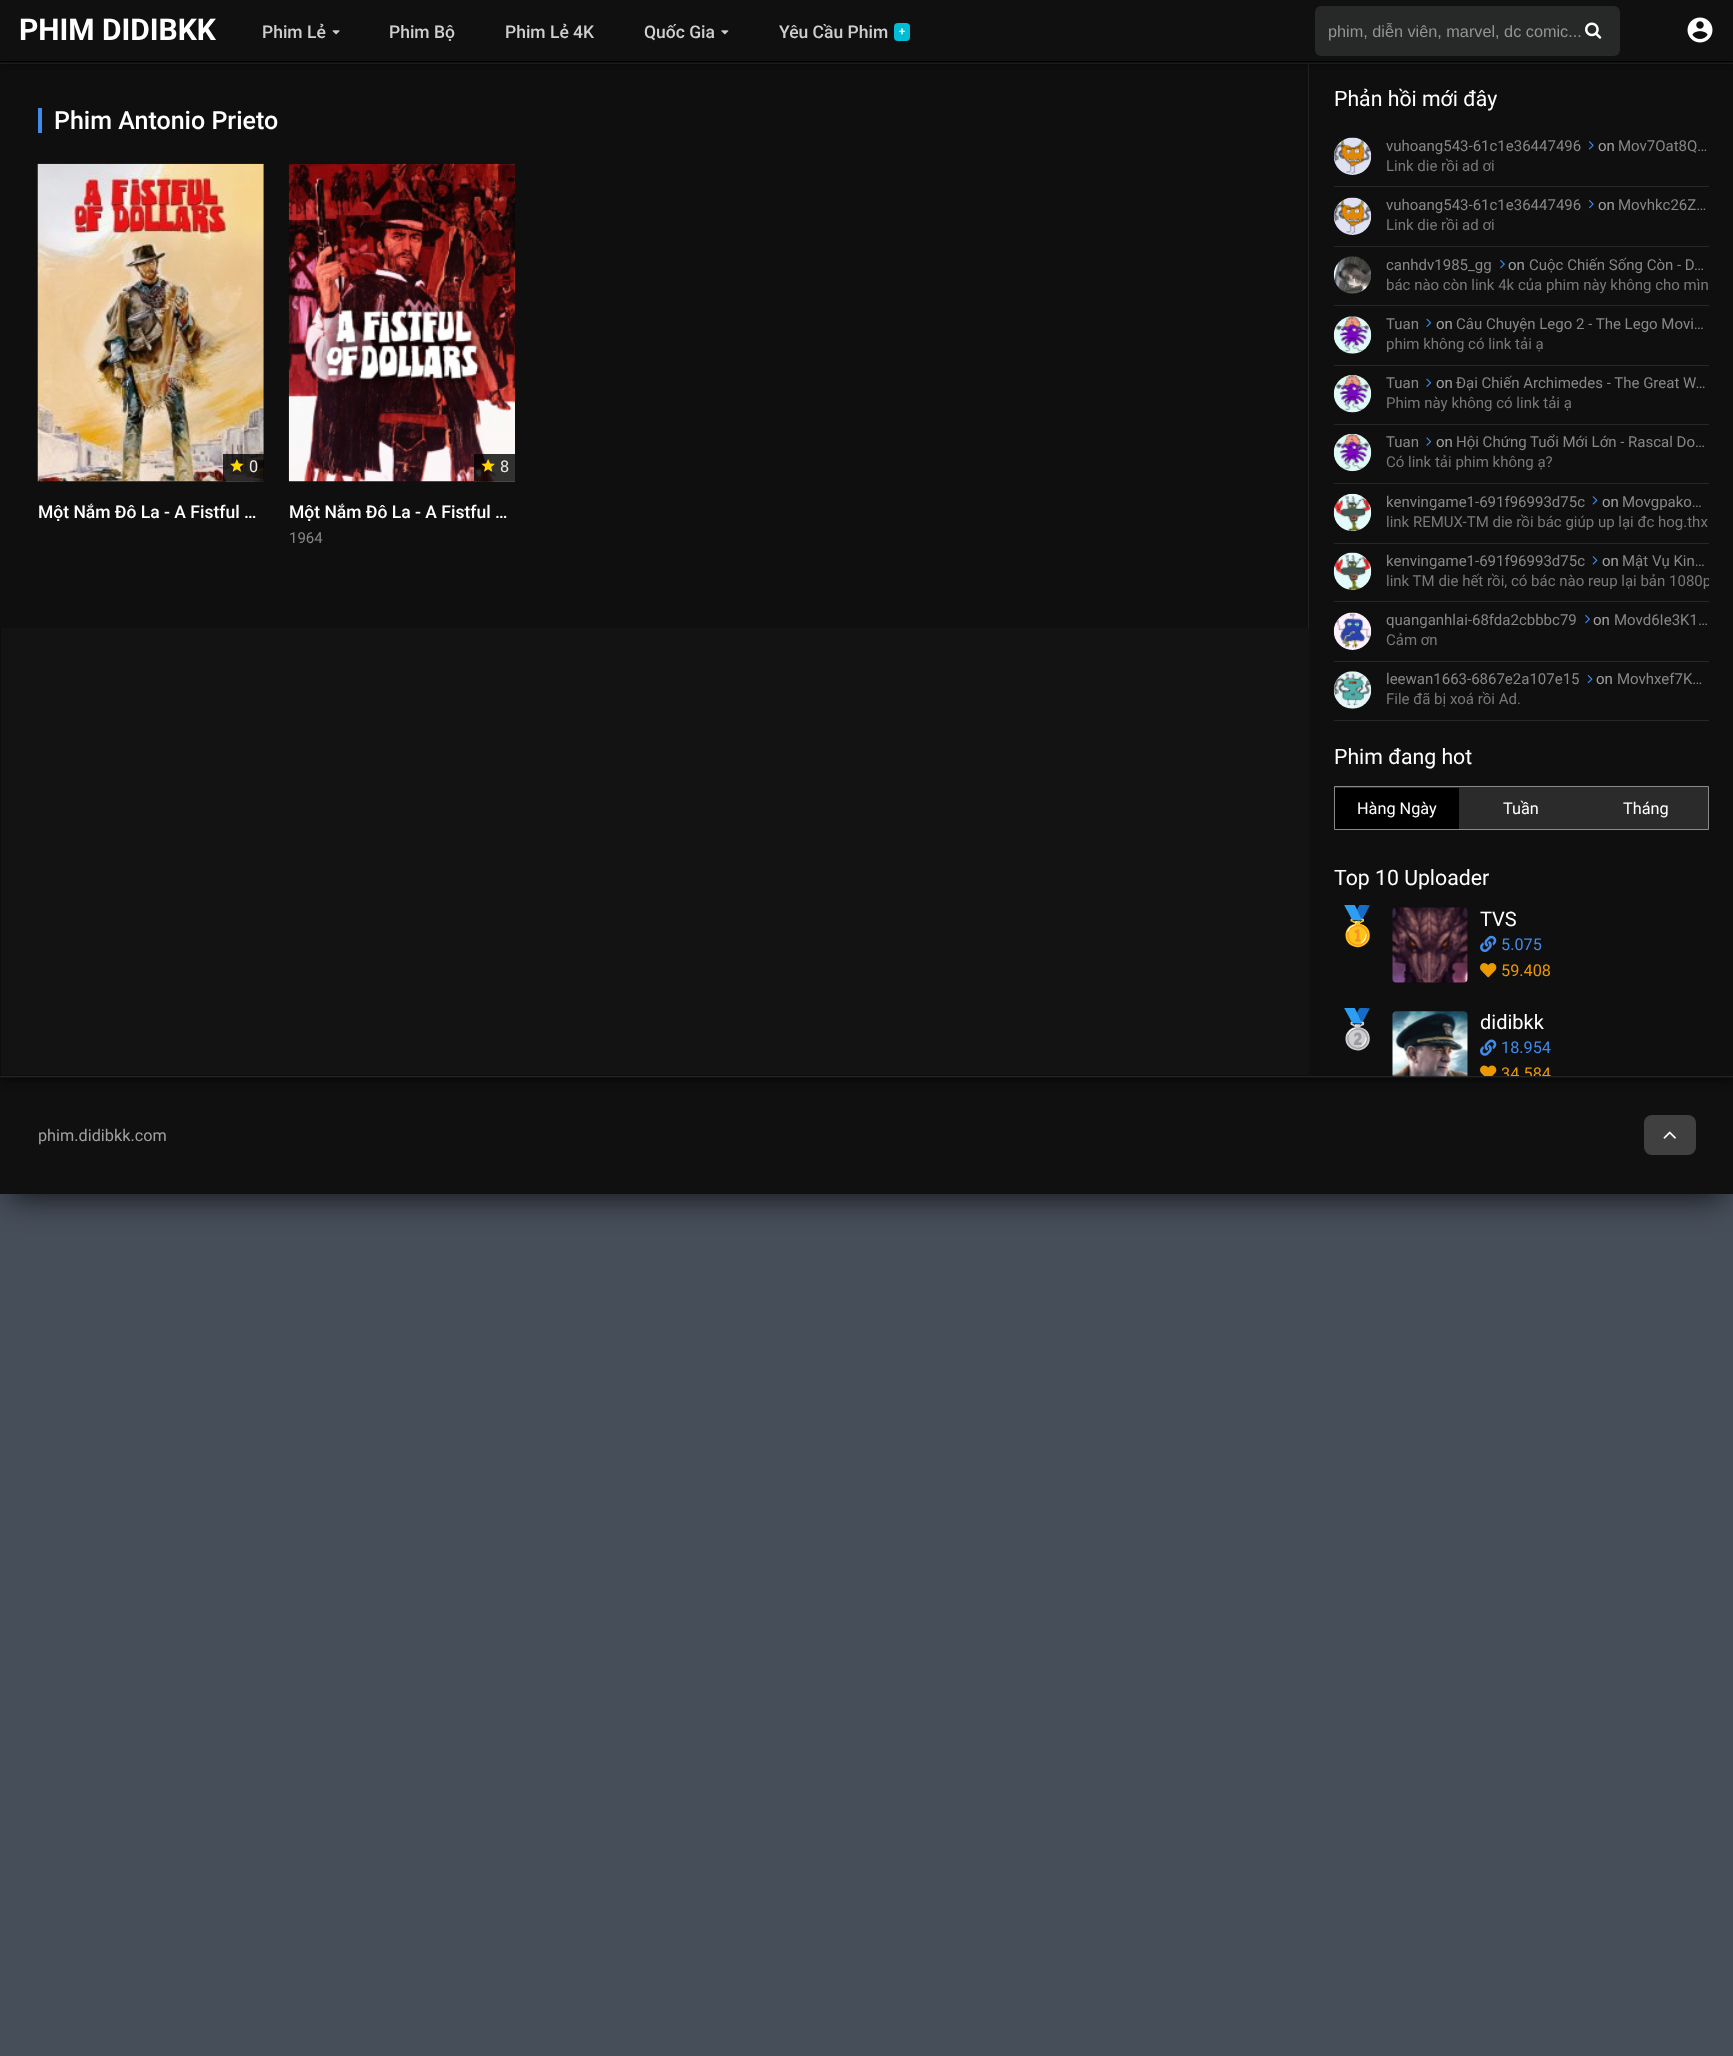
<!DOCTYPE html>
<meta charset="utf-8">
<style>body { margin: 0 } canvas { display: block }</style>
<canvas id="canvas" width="1733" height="2056"></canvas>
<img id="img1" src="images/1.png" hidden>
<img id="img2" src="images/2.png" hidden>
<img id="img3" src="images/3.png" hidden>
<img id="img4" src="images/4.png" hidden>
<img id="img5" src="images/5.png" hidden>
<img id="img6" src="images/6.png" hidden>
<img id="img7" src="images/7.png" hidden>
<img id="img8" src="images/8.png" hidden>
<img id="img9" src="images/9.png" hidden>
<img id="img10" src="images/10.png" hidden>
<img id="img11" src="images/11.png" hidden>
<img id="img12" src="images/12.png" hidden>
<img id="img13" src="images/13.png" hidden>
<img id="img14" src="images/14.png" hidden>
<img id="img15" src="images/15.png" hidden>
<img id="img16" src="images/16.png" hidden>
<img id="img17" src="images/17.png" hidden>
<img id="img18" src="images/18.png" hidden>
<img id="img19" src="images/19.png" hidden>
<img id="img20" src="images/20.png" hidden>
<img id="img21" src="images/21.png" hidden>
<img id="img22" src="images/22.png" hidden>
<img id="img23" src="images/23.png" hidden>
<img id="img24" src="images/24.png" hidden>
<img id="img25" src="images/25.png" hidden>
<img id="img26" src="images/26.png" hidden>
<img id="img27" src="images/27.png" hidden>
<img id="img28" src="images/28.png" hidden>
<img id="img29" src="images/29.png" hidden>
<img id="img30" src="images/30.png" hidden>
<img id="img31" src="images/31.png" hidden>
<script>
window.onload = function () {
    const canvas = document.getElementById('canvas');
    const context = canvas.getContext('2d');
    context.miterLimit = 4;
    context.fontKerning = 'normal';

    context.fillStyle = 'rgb(70, 78, 90)';
    context.fillRect(0, 0, 1733, 2056);
    context.save();
    context.beginPath();
    context.moveTo(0, 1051);
    context.lineTo(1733, 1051);
    context.lineTo(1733, 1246);
    context.lineTo(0, 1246);
    context.closePath();
    context.moveTo(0, 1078);
    context.lineTo(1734, 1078);
    context.lineTo(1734, 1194);
    context.lineTo(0, 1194);
    context.closePath();
    context.clip('evenodd');
    context.fillStyle = 'rgba(0, 0, 0, 0.7)';
    context.filter = 'blur(15.5px)';
    context.beginPath();
    context.rect(9, 1099, 1716, 99);
    context.fill();
    context.filter = 'none';
    context.restore();
    context.fillStyle = 'rgba(15, 15, 15, 0.98)';
    context.fillRect(0, 1078, 1733, 116);
    context.save();
    context.beginPath();
    context.moveTo(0, 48);
    context.lineTo(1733, 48);
    context.lineTo(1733, 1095);
    context.lineTo(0, 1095);
    context.closePath();
    context.moveTo(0, 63);
    context.lineTo(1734, 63);
    context.lineTo(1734, 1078);
    context.lineTo(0, 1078);
    context.closePath();
    context.clip('evenodd');
    context.fillStyle = 'rgba(0, 0, 0, 0.7)';
    context.filter = 'blur(5px)';
    context.beginPath();
    context.rect(0, 64, 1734, 1015);
    context.fill();
    context.filter = 'none';
    context.restore();
    context.fillStyle = 'rgba(15, 15, 15, 0.93)';
    context.fillRect(0, 65, 1733, 1013);
    context.strokeStyle = 'rgb(11, 12, 12)';
    context.strokeRect(0.5, 64.5, 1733, 1011);
    context.fillStyle = 'rgb(35, 36, 37)';
    context.fillRect(0, 63, 1733, 1);
    context.fillStyle = 'rgba(15, 15, 15, 0.93)';
    context.fillRect(0, 64, 1308, 564);
    context.fillStyle = 'rgb(34, 34, 35)';
    context.fillRect(1308, 64, 1, 564);
    context.fillStyle = 'rgba(15, 15, 15, 0.93)';
    context.fillRect(1309, 64, 424, 1012);
    context.save();
    context.beginPath();
    context.moveTo(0, 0);
    context.lineTo(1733, 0);
    context.lineTo(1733, 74);
    context.lineTo(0, 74);
    context.closePath();
    context.moveTo(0, 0);
    context.lineTo(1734, 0);
    context.lineTo(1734, 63);
    context.lineTo(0, 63);
    context.closePath();
    context.clip('evenodd');
    context.fillStyle = 'rgba(0, 0, 0, 0.4)';
    context.filter = 'blur(3px)';
    context.beginPath();
    context.rect(0, 1, 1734, 63);
    context.fill();
    context.filter = 'none';
    context.restore();
    context.fillStyle = 'rgba(15, 15, 15, 0.99)';
    context.fillRect(0, 0, 1733, 63);
    context.fillStyle = 'rgb(0, 0, 0)';
    context.fillRect(0, 61, 1733, 1);
    context.drawImage(document.getElementById('img1'), 332, 30, 8, 5);
    context.drawImage(document.getElementById('img2'), 721, 30, 8, 5);
    context.fillStyle = 'rgb(0, 188, 212)';
    context.beginPath();
    context.roundRect(894, 23, 16, 18, 4);
    context.fill();
    context.fillStyle = 'rgb(39, 40, 40)';
    context.beginPath();
    context.roundRect(1315, 6, 305, 50, 6);
    context.fill();
    context.drawImage(document.getElementById('img3'), 1585, 22, 17, 17);
    context.drawImage(document.getElementById('img4'), 1687, 17, 26, 26);
    context.fillStyle = 'rgb(35, 36, 36)';
    context.fillRect(0, 1076, 1733, 1);
    context.fillStyle = 'rgb(64, 139, 234)';
    context.fillRect(38, 108, 4, 25);
    context.drawImage(document.getElementById('img5'), 37, 163, 227, 319);
    context.fillStyle = 'rgba(0, 0, 0, 0.8)';
    context.fillRect(223, 454, 41, 27);
    context.drawImage(document.getElementById('img6'), 230, 459, 14, 13);
    context.drawImage(document.getElementById('img7'), 288, 163, 227, 319);
    context.fillRect(474, 454, 41, 27);
    context.drawImage(document.getElementById('img8'), 481, 459, 14, 13);
    context.fillStyle = 'rgb(39, 39, 39)';
    context.fillRect(1334, 186, 375, 1);
    context.drawImage(document.getElementById('img9'), 1333, 137, 39, 38);
    context.drawImage(document.getElementById('img10'), 1588, 141, 6, 9);
    context.fillRect(1334, 246, 375, 1);
    context.drawImage(document.getElementById('img9'), 1333, 197, 39, 38);
    context.drawImage(document.getElementById('img11'), 1588, 200, 6, 9);
    context.fillRect(1334, 305, 375, 1);
    context.drawImage(document.getElementById('img12'), 1333, 256, 38, 38);
    context.drawImage(document.getElementById('img13'), 1500, 260, 5, 9);
    context.fillRect(1334, 365, 375, 1);
    context.drawImage(document.getElementById('img14'), 1333, 316, 39, 38);
    context.drawImage(document.getElementById('img15'), 1426, 318, 6, 9);
    context.fillRect(1334, 424, 375, 1);
    context.drawImage(document.getElementById('img16'), 1333, 375, 39, 38);
    context.drawImage(document.getElementById('img15'), 1426, 378, 6, 9);
    context.fillRect(1334, 483, 375, 1);
    context.drawImage(document.getElementById('img17'), 1333, 433, 39, 39);
    context.drawImage(document.getElementById('img18'), 1426, 437, 6, 9);
    context.fillRect(1334, 543, 375, 1);
    context.drawImage(document.getElementById('img19'), 1333, 493, 39, 39);
    context.drawImage(document.getElementById('img20'), 1592, 496, 6, 9);
    context.fillRect(1334, 601, 375, 1);
    context.drawImage(document.getElementById('img21'), 1333, 552, 39, 38);
    context.drawImage(document.getElementById('img20'), 1592, 556, 6, 9);
    context.fillRect(1334, 661, 375, 1);
    context.drawImage(document.getElementById('img22'), 1333, 612, 39, 38);
    context.drawImage(document.getElementById('img13'), 1585, 615, 5, 9);
    context.fillRect(1334, 720, 375, 1);
    context.drawImage(document.getElementById('img23'), 1333, 671, 39, 38);
    context.drawImage(document.getElementById('img24'), 1587, 675, 6, 9);
    context.fillStyle = 'rgb(43, 43, 43)';
    context.beginPath();
    context.rect(1334.5, 786.5, 374, 43);
    context.fill();
    context.strokeStyle = 'rgb(138, 138, 138)';
    context.stroke();
    context.fillStyle = 'rgb(0, 0, 0)';
    context.fillRect(1335, 788, 124, 41);
    context.fillStyle = 'rgb(8, 8, 8)';
    context.beginPath();
    context.roundRect(1393, 908, 75, 75, 4);
    context.fill();
    context.drawImage(document.getElementById('img25'), 1392, 907, 76, 76);
    context.drawImage(document.getElementById('img26'), 1480, 935, 17, 17);
    context.drawImage(document.getElementById('img27'), 1480, 963, 17, 15);
    context.beginPath();
    context.roundRect(1393, 1011, 75, 65, [4, 4, 0, 0]);
    context.fill();
    context.drawImage(document.getElementById('img28'), 1392, 1011, 76, 66);
    context.drawImage(document.getElementById('img29'), 1480, 1039, 17, 17);
    context.drawImage(document.getElementById('img30'), 1480, 1065, 17, 11);
    context.fillStyle = 'rgb(64, 64, 64)';
    context.beginPath();
    context.roundRect(1644, 1115, 52, 40, 8);
    context.fill();
    context.drawImage(document.getElementById('img31'), 1663, 1131, 13, 8);
    context.font = 'bold 30px Roboto';
    context.fillStyle = 'rgb(255, 255, 255)';
    context.fillText('PHIM DIDIBKK', 19, 40);
    context.font = '500 17.5px Roboto';
    context.fillStyle = 'rgb(207, 207, 207)';
    context.fillText('Phim Lẻ', 262, 38);
    context.fillText('Phim Bộ', 389, 38);
    context.fillText('Phim Lẻ 4K', 505, 38);
    context.fillText('Quốc Gia', 644, 38);
    context.fillText('Yêu Cầu Phim', 779, 38);
    context.font = 'bold 11px Roboto';
    context.fillStyle = 'rgb(255, 255, 255)';
    context.fillText('+', 899, 35);
    context.font = '16.25px Liberation Sans';
    context.fillStyle = 'rgb(147, 148, 148)';
    context.fillText('phim, diễn viên, marvel, dc comic...', 1328, 37);
    context.font = '500 25px Roboto';
    context.fillStyle = 'rgb(255, 255, 255)';
    context.fillText('Phim Antonio Prieto', 54, 129);
    context.font = '16.25px Roboto';
    context.fillStyle = 'rgb(233, 233, 232)';
    context.fillText('0', 249, 472);
    context.font = '500 17.5px Roboto';
    context.fillStyle = 'rgb(255, 255, 255)';
    context.fillText('Một Nắm Đô La - A Fistful …', 38, 518);
    context.font = '16.25px Roboto';
    context.fillStyle = 'rgb(233, 233, 232)';
    context.fillText('8', 500, 472);
    context.font = '500 17.5px Roboto';
    context.fillStyle = 'rgb(255, 255, 255)';
    context.fillText('Một Nắm Đô La - A Fistful …', 289, 518);
    context.font = '15px Roboto';
    context.fillStyle = 'rgb(135, 135, 135)';
    context.fillText('1964', 289, 543);
    context.font = '21.25px Roboto';
    context.fillStyle = 'rgb(255, 255, 255)';
    context.fillText('Phản hồi mới đây', 1334, 106);
    context.font = '15px Roboto';
    context.fillStyle = 'rgb(135, 135, 135)';
    context.fillText('vuhoang543-61c1e36447496', 1386, 151);
    context.fillStyle = 'rgb(159, 160, 160)';
    context.fillText('on', 1598, 151);
    context.fillStyle = 'rgb(135, 135, 135)';
    context.fillText('Mov7Oat8Q…', 1618, 151);
    context.fillStyle = 'rgb(120, 120, 120)';
    context.fillText('Link die rồi ad ơi', 1386, 171);
    context.fillStyle = 'rgb(135, 135, 135)';
    context.fillText('vuhoang543-61c1e36447496', 1386, 210);
    context.fillStyle = 'rgb(159, 160, 160)';
    context.fillText('on', 1598, 210);
    context.fillStyle = 'rgb(135, 135, 135)';
    context.fillText('Movhkc26Z…', 1618, 210);
    context.fillStyle = 'rgb(120, 120, 120)';
    context.fillText('Link die rồi ad ơi', 1386, 230);
    context.fillStyle = 'rgb(135, 135, 135)';
    context.fillText('canhdv1985_gg', 1386, 270);
    context.fillStyle = 'rgb(159, 160, 160)';
    context.fillText('on', 1508, 270);
    context.fillStyle = 'rgb(135, 135, 135)';
    context.fillText('Cuộc Chiến Sống Còn - D…', 1529, 270);
    context.fillStyle = 'rgb(120, 120, 120)';
    context.fillText('bác nào còn link 4k của phim này không cho mìn', 1386, 290);
    context.fillStyle = 'rgb(135, 135, 135)';
    context.fillText('Tuan', 1386, 329);
    context.fillStyle = 'rgb(159, 160, 160)';
    context.fillText('on', 1436, 329);
    context.fillStyle = 'rgb(135, 135, 135)';
    context.fillText('Câu Chuyện Lego 2 - The Lego Movi…', 1456, 329);
    context.fillStyle = 'rgb(120, 120, 120)';
    context.fillText('phim không có link tải ạ', 1386, 349);
    context.fillStyle = 'rgb(135, 135, 135)';
    context.fillText('Tuan', 1386, 388);
    context.fillStyle = 'rgb(159, 160, 160)';
    context.fillText('on', 1436, 388);
    context.fillStyle = 'rgb(135, 135, 135)';
    context.fillText('Đại Chiến Archimedes - The Great W…', 1456, 388);
    context.fillStyle = 'rgb(120, 120, 120)';
    context.fillText('Phim này không có link tải ạ', 1386, 408);
    context.fillStyle = 'rgb(135, 135, 135)';
    context.fillText('Tuan', 1386, 447);
    context.fillStyle = 'rgb(159, 160, 160)';
    context.fillText('on', 1436, 447);
    context.fillStyle = 'rgb(135, 135, 135)';
    context.fillText('Hội Chứng Tuổi Mới Lớn - Rascal Do…', 1456, 447);
    context.fillStyle = 'rgb(120, 120, 120)';
    context.fillText('Có link tải phim không ạ?', 1386, 467);
    context.fillStyle = 'rgb(135, 135, 135)';
    context.fillText('kenvingame1-691f96993d75c', 1386, 507);
    context.fillStyle = 'rgb(159, 160, 160)';
    context.fillText('on', 1602, 507);
    context.fillStyle = 'rgb(135, 135, 135)';
    context.fillText('Movgpako…', 1622, 507);
    context.fillStyle = 'rgb(120, 120, 120)';
    context.fillText('link REMUX-TM die rồi bác giúp up lại đc hog.thx', 1386, 527);
    context.fillStyle = 'rgb(135, 135, 135)';
    context.fillText('kenvingame1-691f96993d75c', 1386, 566);
    context.fillStyle = 'rgb(159, 160, 160)';
    context.fillText('on', 1602, 566);
    context.fillStyle = 'rgb(135, 135, 135)';
    context.fillText('Mật Vụ Kin…', 1622, 566);
    context.save();
    context.beginPath();
    context.rect(1334, 544, 375, 57);
    context.clip();
    context.fillStyle = 'rgb(120, 120, 120)';
    context.fillText('link TM die hết rồi, có bác nào reup lại bản 1080p', 1386, 586);
    context.restore();
    context.fillText('quanganhlai-68fda2cbbbc79', 1386, 625);
    context.fillStyle = 'rgb(159, 160, 160)';
    context.fillText('on', 1593, 625);
    context.fillStyle = 'rgb(135, 135, 135)';
    context.fillText('Movd6Ie3K1…', 1614, 625);
    context.fillStyle = 'rgb(120, 120, 120)';
    context.fillText('Cảm ơn', 1386, 645);
    context.fillStyle = 'rgb(135, 135, 135)';
    context.fillText('leewan1663-6867e2a107e15', 1386, 684);
    context.fillStyle = 'rgb(159, 160, 160)';
    context.fillText('on', 1596, 684);
    context.fillStyle = 'rgb(135, 135, 135)';
    context.fillText('Movhxef7K…', 1617, 684);
    context.fillStyle = 'rgb(120, 120, 120)';
    context.fillText('File đã bị xoá rồi Ad.', 1386, 704);
    context.font = '21.25px Roboto';
    context.fillStyle = 'rgb(255, 255, 255)';
    context.fillText('Phim đang hot', 1334, 764);
    context.font = '16.25px Roboto';
    context.fillText('Hàng Ngày', 1357, 814);
    context.fillText('Tuần', 1503, 814);
    context.fillText('Tháng', 1623, 814);
    context.font = '21.25px Roboto';
    context.fillText('Top 10 Uploader', 1334, 885);
    context.font = '38px Noto Color Emoji';
    context.fillStyle = 'rgb(64, 139, 234)';
    context.fillText('🥇', 1334, 939);
    context.font = '20px Roboto';
    context.fillStyle = 'rgb(255, 255, 255)';
    context.fillText('TVS', 1480, 926);
    context.font = '16.25px Roboto';
    context.fillStyle = 'rgb(64, 139, 234)';
    context.fillText('5.075', 1501, 950);
    context.fillStyle = 'rgb(234, 153, 0)';
    context.fillText('59.408', 1501, 976);
    context.font = '38px Noto Color Emoji';
    context.fillStyle = 'rgb(64, 139, 234)';
    context.fillText('🥈', 1334, 1042);
    context.font = '20px Roboto';
    context.fillStyle = 'rgb(255, 255, 255)';
    context.fillText('didibkk', 1480, 1029);
    context.font = '16.25px Roboto';
    context.fillStyle = 'rgb(64, 139, 234)';
    context.fillText('18.954', 1501, 1053);
    context.save();
    context.beginPath();
    context.rect(1309, 64, 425, 1012);
    context.clip();
    context.fillStyle = 'rgb(234, 153, 0)';
    context.fillText('34.584', 1501, 1079);
    context.restore();
    context.fillStyle = 'rgb(159, 160, 160)';
    context.fillText('phim.didibkk.com', 38, 1141);
};
</script>
